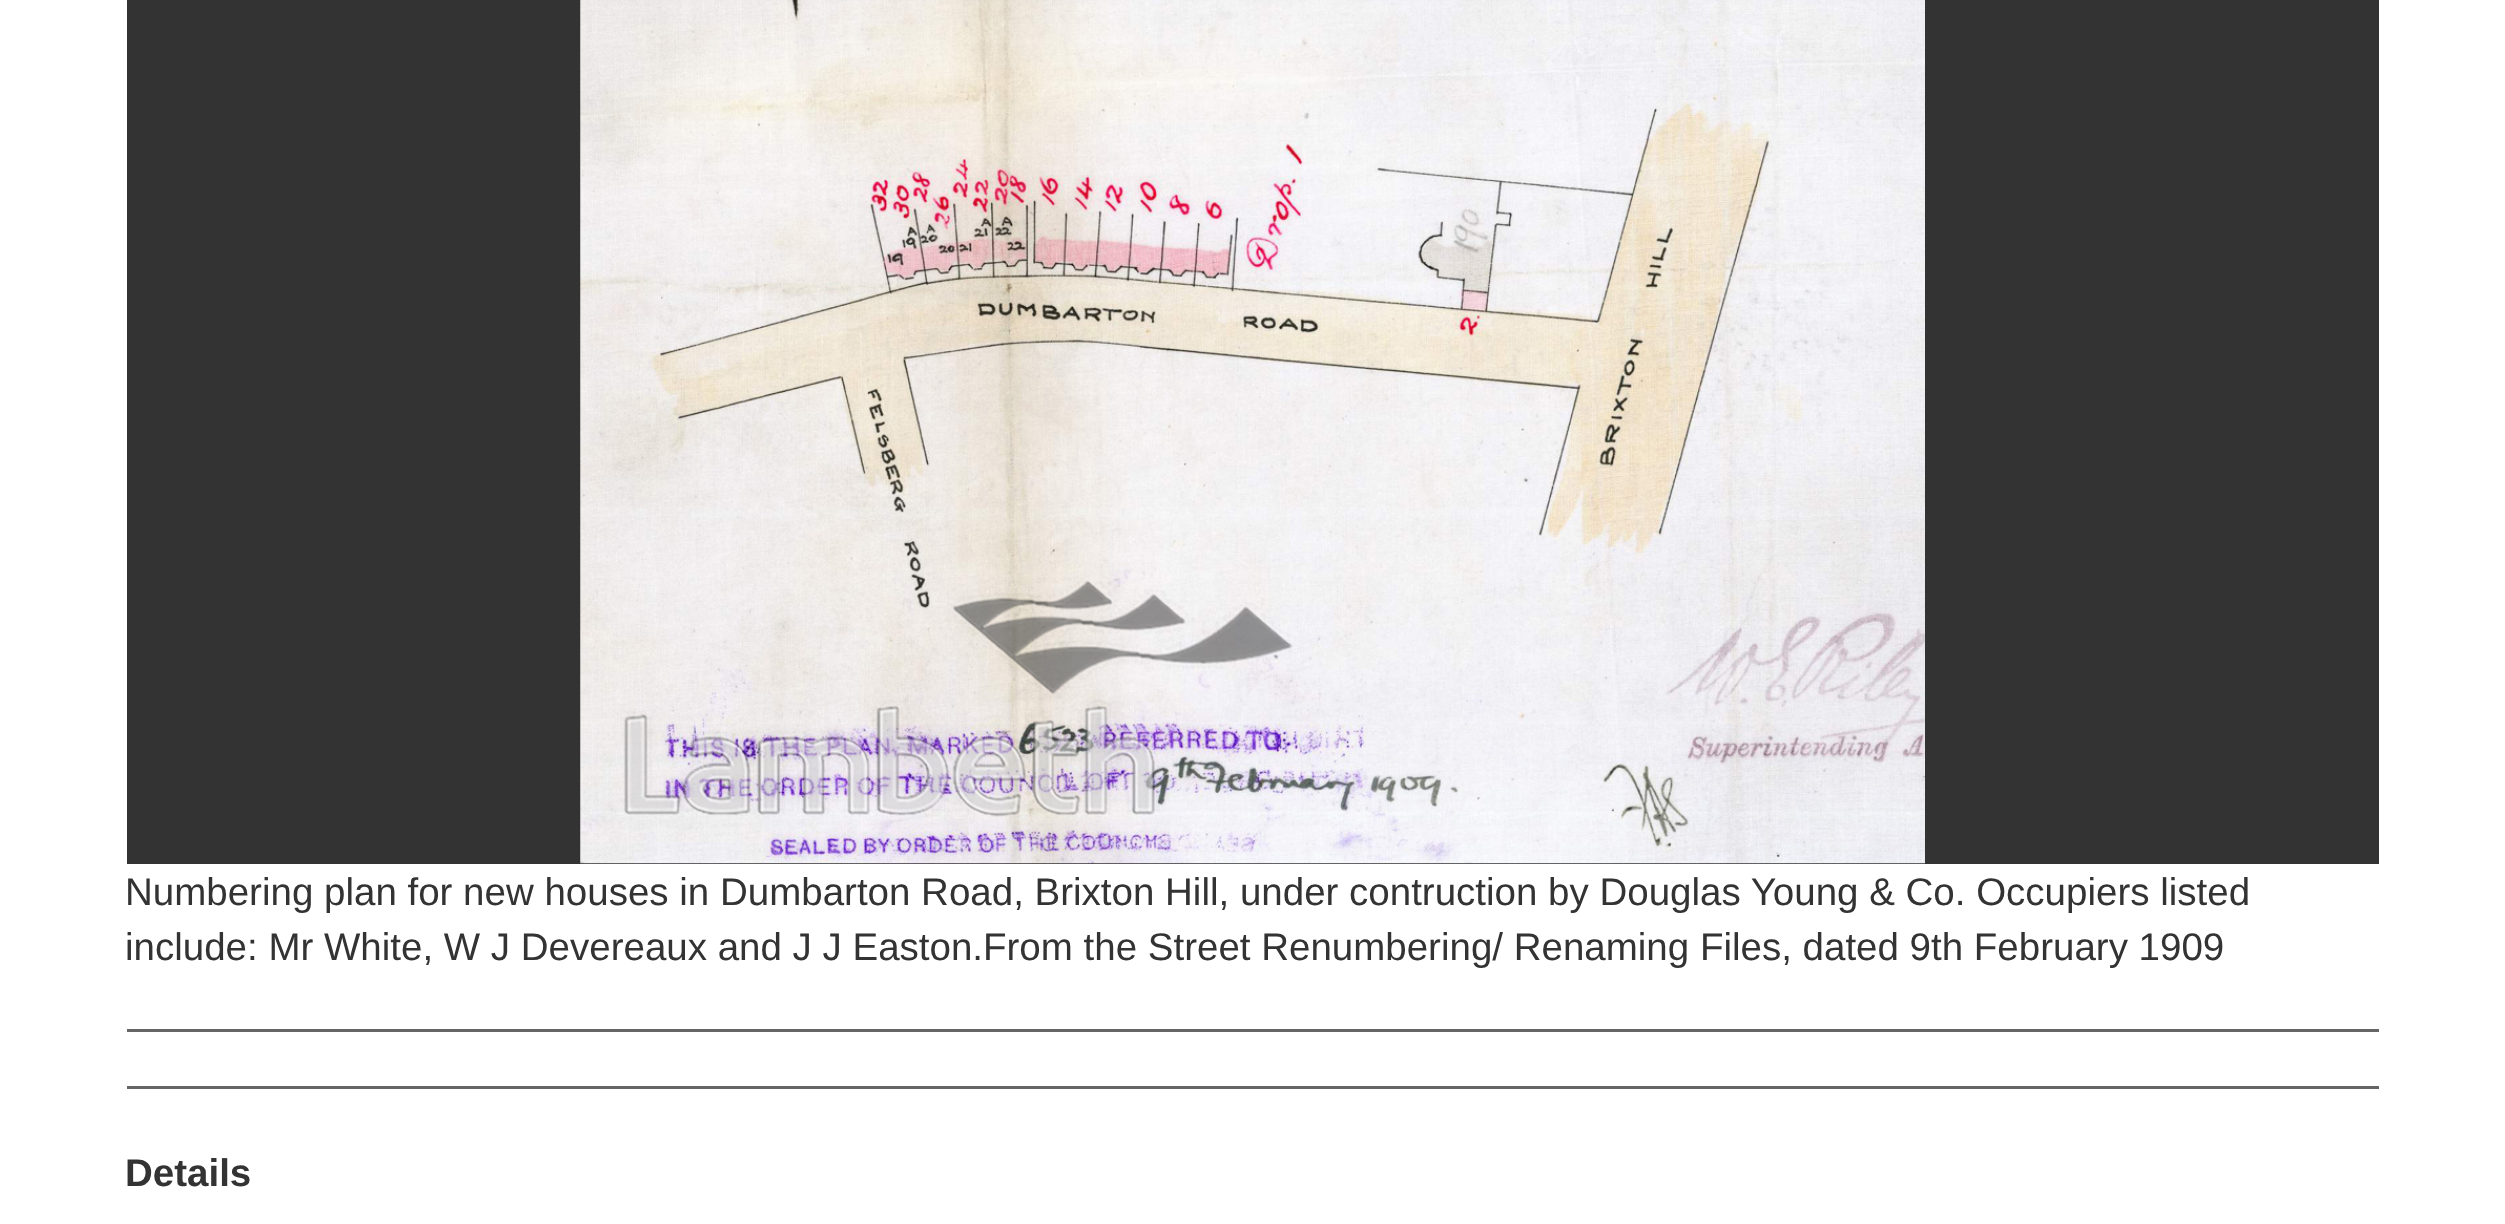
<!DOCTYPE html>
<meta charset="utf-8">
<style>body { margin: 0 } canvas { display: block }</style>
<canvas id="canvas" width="2505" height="1224"></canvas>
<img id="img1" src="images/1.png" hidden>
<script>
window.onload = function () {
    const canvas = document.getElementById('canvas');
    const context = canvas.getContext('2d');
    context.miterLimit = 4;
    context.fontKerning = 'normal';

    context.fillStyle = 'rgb(255, 255, 255)';
    context.fillRect(0, 0, 2505, 1224);
    context.fillStyle = 'rgb(51, 51, 51)';
    context.fillRect(127, 0, 2252, 864);
    context.drawImage(document.getElementById('img1'), 580, 0, 1345, 864);
    context.fillStyle = 'rgb(102, 102, 102)';
    context.fillRect(127, 1029, 2252, 3);
    context.fillRect(127, 1086, 2252, 3);
    context.font = '38.5px Liberation Sans';
    context.fillStyle = 'rgb(51, 51, 51)';
    context.fillText('Numbering plan for new houses in Dumbarton Road, Brixton Hill, under contruction by Douglas Young & Co. Occupiers listed', 125, 905);
    context.fillText('include: Mr White, W J Devereaux and J J Easton.From the Street Renumbering/ Renaming Files, dated 9th February 1909', 125, 960);
    context.font = 'bold 38.5px Liberation Sans';
    context.fillText('Details', 125, 1186);
};
</script>
